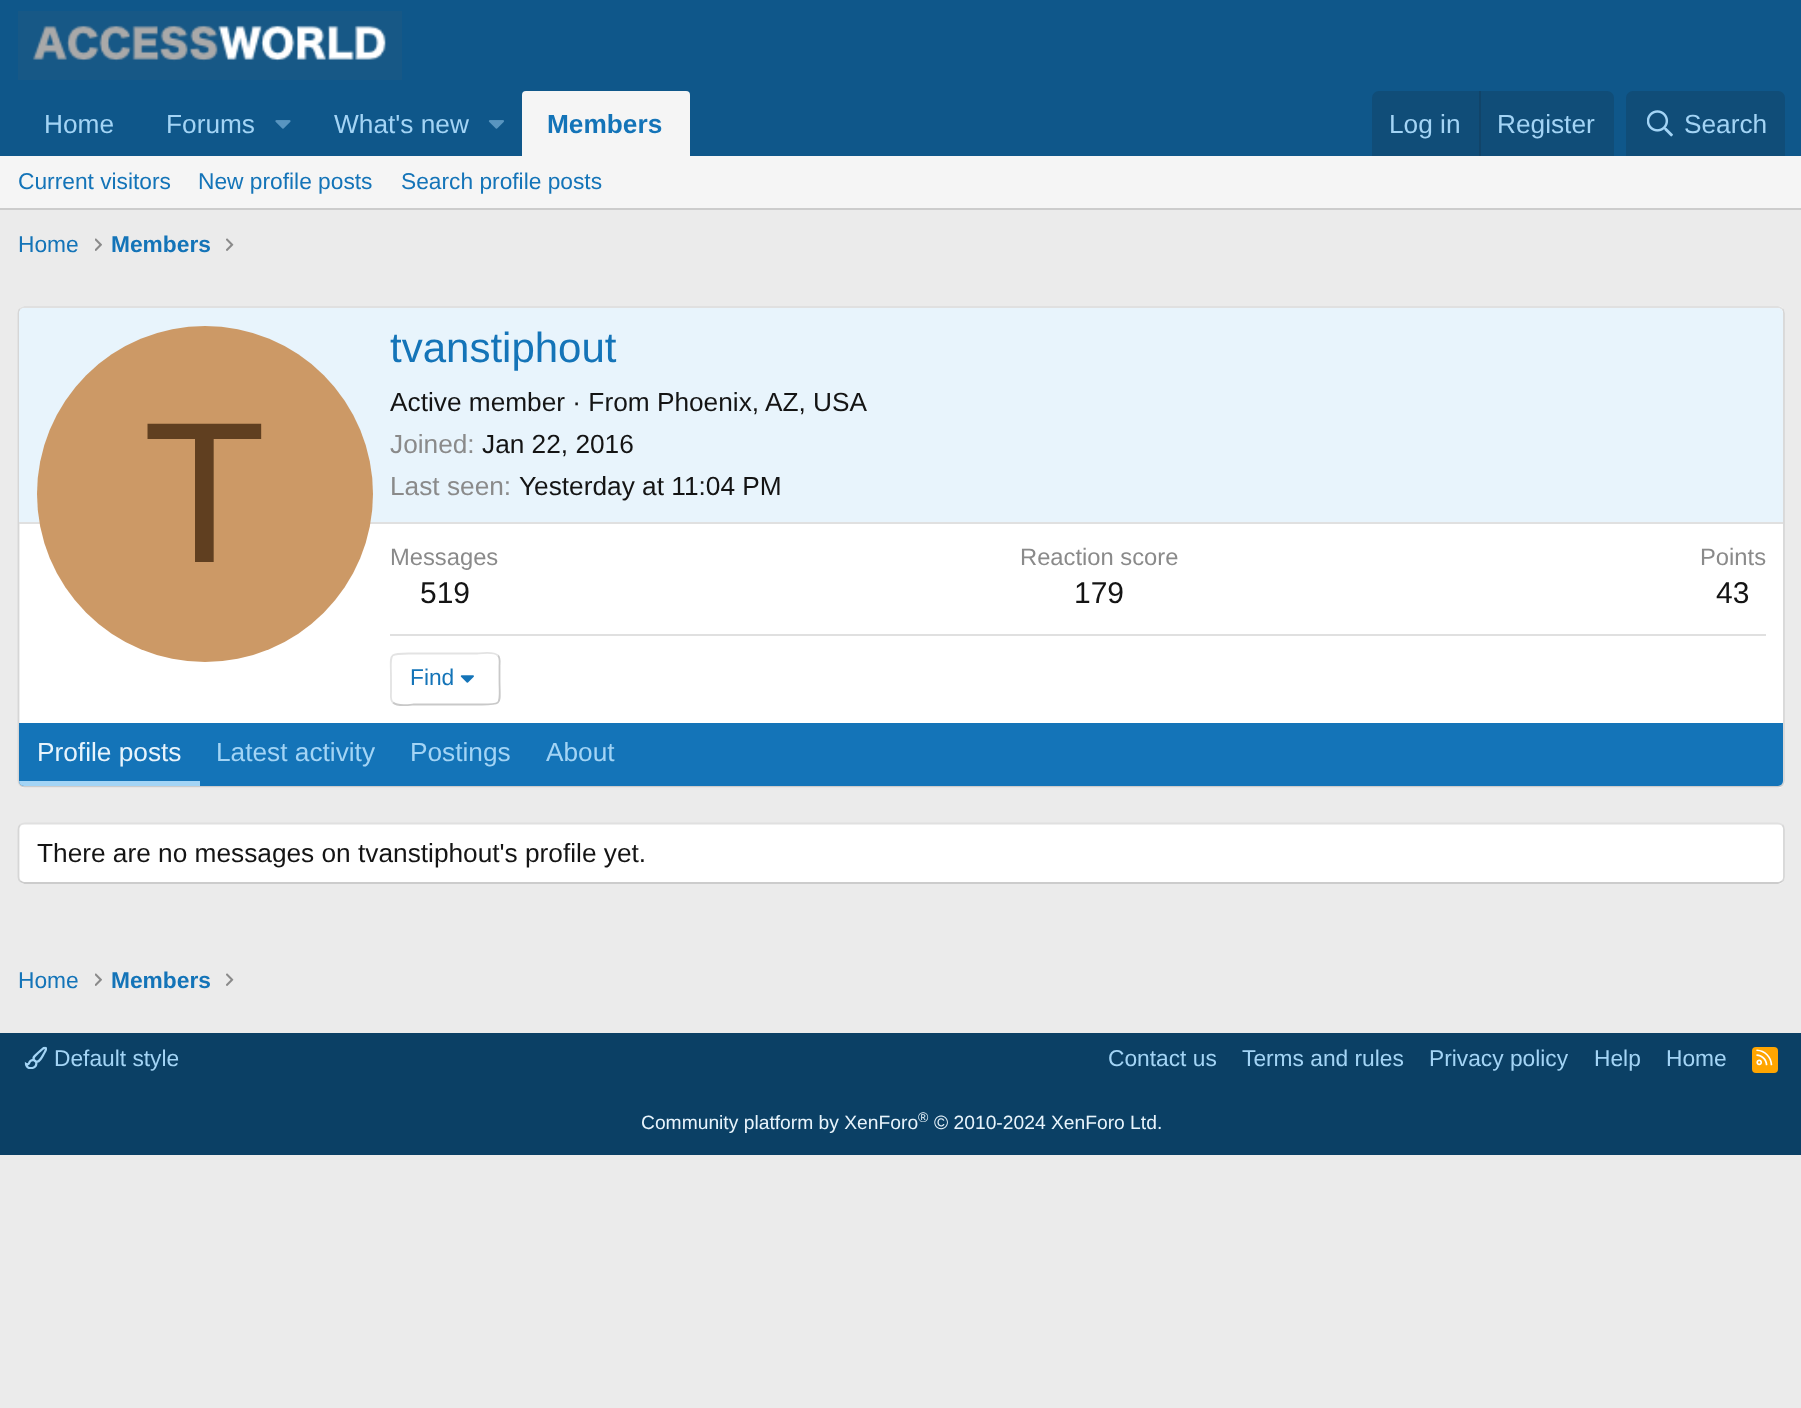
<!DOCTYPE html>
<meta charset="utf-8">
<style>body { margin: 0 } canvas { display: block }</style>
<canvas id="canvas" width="1801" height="1408"></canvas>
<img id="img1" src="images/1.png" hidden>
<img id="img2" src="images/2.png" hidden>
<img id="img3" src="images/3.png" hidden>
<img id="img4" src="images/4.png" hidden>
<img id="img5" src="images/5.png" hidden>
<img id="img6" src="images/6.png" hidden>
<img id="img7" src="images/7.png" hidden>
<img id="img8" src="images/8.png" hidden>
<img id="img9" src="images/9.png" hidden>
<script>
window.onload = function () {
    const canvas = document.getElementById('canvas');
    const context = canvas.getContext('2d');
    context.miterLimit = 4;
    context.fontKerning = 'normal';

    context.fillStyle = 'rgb(235, 235, 235)';
    context.fillRect(0, 0, 1801, 1408);
    context.fillStyle = 'rgb(15, 87, 138)';
    context.fillRect(0, 0, 1801, 156);
    context.drawImage(document.getElementById('img1'), 18, 11, 384, 69);
    context.drawImage(document.getElementById('img2'), 275, 120, 16, 9);
    context.drawImage(document.getElementById('img3'), 488, 120, 16, 9);
    context.fillStyle = 'rgb(245, 245, 245)';
    context.beginPath();
    context.roundRect(522, 91, 168, 65, [4, 4, 0, 0]);
    context.fill();
    context.fillStyle = 'rgb(16, 77, 120)';
    context.beginPath();
    context.roundRect(1372, 91, 242, 65, [7, 7, 0, 0]);
    context.fill();
    context.fillStyle = 'rgb(17, 68, 105)';
    context.fillRect(1479, 91, 2, 65);
    context.fillStyle = 'rgb(16, 77, 120)';
    context.beginPath();
    context.roundRect(1626, 91, 159, 65, [7, 7, 0, 0]);
    context.fill();
    context.drawImage(document.getElementById('img4'), 1647, 110, 26, 27);
    context.fillStyle = 'rgb(245, 245, 245)';
    context.fillRect(0, 156, 1801, 52);
    context.fillStyle = 'rgb(204, 204, 204)';
    context.fillRect(0, 208, 1801, 2);
    context.drawImage(document.getElementById('img5'), 95, 238, 7, 13);
    context.drawImage(document.getElementById('img6'), 226, 238, 8, 13);
    context.fillStyle = 'rgb(255, 255, 255)';
    context.beginPath();
    context.roundRect(18, 306, 1767, 482, 7);
    context.fill();
    context.beginPath();
    context.moveTo(20, 309);
    context.bezierCurveTo(21.5, 308, 23, 307, 24.5, 307);
    context.lineTo(1778, 307);
    context.bezierCurveTo(1779.5, 307, 1781, 308, 1782.5, 309);
    context.strokeStyle = 'rgb(224, 224, 224)';
    context.lineWidth = 1.8;
    context.stroke();
    context.beginPath();
    context.moveTo(1782.5, 309);
    context.bezierCurveTo(1783.5, 310, 1784, 311.5, 1784, 313);
    context.lineTo(1784, 780.5);
    context.bezierCurveTo(1784, 782, 1783.5, 783.5, 1782.5, 785);
    context.strokeStyle = 'rgb(214, 214, 214)';
    context.stroke();
    context.beginPath();
    context.moveTo(1782.5, 785);
    context.bezierCurveTo(1781, 786, 1779.5, 786.5, 1778, 786.5);
    context.lineTo(24.5, 786.5);
    context.bezierCurveTo(23, 786.5, 21.5, 786, 20, 785);
    context.strokeStyle = 'rgb(204, 204, 204)';
    context.stroke();
    context.beginPath();
    context.moveTo(20, 785);
    context.bezierCurveTo(19, 783.5, 18.5, 782, 18.5, 780.5);
    context.lineTo(18.5, 313);
    context.bezierCurveTo(18.5, 311.5, 19, 310, 20, 309);
    context.strokeStyle = 'rgb(214, 214, 214)';
    context.stroke();
    context.fillStyle = 'rgb(232, 244, 252)';
    context.beginPath();
    context.roundRect(19, 308, 1764, 215, [5, 5, 0, 0]);
    context.fill();
    context.fillStyle = 'rgb(224, 224, 224)';
    context.fillRect(19, 522, 1764, 2);
    context.fillStyle = 'rgb(204, 153, 102)';
    context.beginPath();
    context.arc(205, 494, 168, 0, 2 * Math.PI);
    context.fill();
    context.fillStyle = 'rgb(224, 224, 224)';
    context.fillRect(390, 634, 1376, 2);
    context.beginPath();
    context.moveTo(498, 655.5);
    context.bezierCurveTo(500.5, 658, 499.5, 663, 499.5, 666);
    context.lineTo(499.5, 679);
    context.bezierCurveTo(499.5, 706, 504, 704.5, 477.5, 704.5);
    context.lineTo(413.5, 704.5);
    context.bezierCurveTo(412.5, 704.5, 397.5, 707, 393, 702.5);
    context.strokeStyle = 'rgb(201, 201, 201)';
    context.stroke();
    context.beginPath();
    context.moveTo(393, 702.5);
    context.bezierCurveTo(390, 700, 391, 695, 391, 692);
    context.lineTo(391, 679);
    context.bezierCurveTo(391, 652, 386.5, 653.5, 413.5, 653.5);
    context.lineTo(477.5, 653.5);
    context.bezierCurveTo(478.5, 653.5, 493.5, 651, 498, 655.5);
    context.strokeStyle = 'rgb(227, 227, 227)';
    context.stroke();
    context.drawImage(document.getElementById('img7'), 460, 675, 14, 8);
    context.fillStyle = 'rgb(20, 116, 184)';
    context.beginPath();
    context.roundRect(19, 723, 1764, 63, [0, 0, 5, 5]);
    context.fill();
    context.fillStyle = 'rgb(163, 212, 245)';
    context.beginPath();
    context.roundRect(19, 781, 181, 5, [0, 0, 0, 5]);
    context.fill();
    context.fillStyle = 'rgb(255, 255, 255)';
    context.beginPath();
    context.roundRect(18, 823, 1767, 61, 7);
    context.fill();
    context.beginPath();
    context.moveTo(20, 825);
    context.bezierCurveTo(21.5, 824, 23, 823.5, 24.5, 823.5);
    context.lineTo(1778, 823.5);
    context.bezierCurveTo(1779.5, 823.5, 1781, 824, 1782.5, 825);
    context.strokeStyle = 'rgb(224, 224, 224)';
    context.stroke();
    context.beginPath();
    context.moveTo(1782.5, 825);
    context.bezierCurveTo(1783.5, 826.5, 1784, 828, 1784, 829.5);
    context.lineTo(1784, 877);
    context.bezierCurveTo(1784, 878.5, 1783.5, 880, 1782.5, 881);
    context.strokeStyle = 'rgb(214, 214, 214)';
    context.stroke();
    context.beginPath();
    context.moveTo(1782.5, 881);
    context.bezierCurveTo(1781, 882, 1779.5, 883, 1778, 883);
    context.lineTo(24.5, 883);
    context.bezierCurveTo(23, 883, 21.5, 882, 20, 881);
    context.strokeStyle = 'rgb(204, 204, 204)';
    context.stroke();
    context.beginPath();
    context.moveTo(20, 881);
    context.bezierCurveTo(19, 880, 18.5, 878.5, 18.5, 877);
    context.lineTo(18.5, 829.5);
    context.bezierCurveTo(18.5, 828, 19, 826.5, 20, 825);
    context.strokeStyle = 'rgb(214, 214, 214)';
    context.stroke();
    context.drawImage(document.getElementById('img5'), 95, 973, 7, 13);
    context.drawImage(document.getElementById('img6'), 226, 973, 8, 13);
    context.fillStyle = 'rgb(11, 64, 101)';
    context.fillRect(0, 1033, 1801, 122);
    context.drawImage(document.getElementById('img8'), 24, 1046, 23, 23);
    context.fillStyle = 'rgb(255, 165, 0)';
    context.beginPath();
    context.roundRect(1752, 1047, 26, 26, 4);
    context.fill();
    context.drawImage(document.getElementById('img9'), 1756, 1049, 17, 17);
    context.font = '26.25px Liberation Sans';
    context.fillStyle = 'rgb(163, 212, 245)';
    context.fillText('Home', 44, 133);
    context.fillText('Forums', 166, 133);
    context.fillText('What\'s new', 334, 133);
    context.font = 'bold 26.25px Liberation Sans';
    context.fillStyle = 'rgb(20, 116, 184)';
    context.fillText('Members', 547, 133);
    context.font = '26.25px Liberation Sans';
    context.fillStyle = 'rgb(163, 212, 245)';
    context.fillText('Log in', 1389, 133);
    context.fillText('Register', 1497, 133);
    context.fillText('Search', 1684, 133);
    context.font = '22.75px Liberation Sans';
    context.fillStyle = 'rgb(20, 116, 184)';
    context.fillText('Current visitors', 18, 189);
    context.fillText('New profile posts', 198, 189);
    context.fillText('Search profile posts', 401, 189);
    context.fillText('Home', 18, 252);
    context.font = 'bold 22.75px Liberation Sans';
    context.fillText('Members', 111, 252);
    context.font = '201px Liberation Sans';
    context.fillStyle = 'rgb(96, 63, 32)';
    context.fillText('T', 143, 562);
    context.font = '42px Liberation Sans';
    context.fillStyle = 'rgb(20, 116, 184)';
    context.fillText('tvanstiphout', 390, 362);
    context.font = '26.25px Liberation Sans';
    context.fillStyle = 'rgb(20, 20, 20)';
    context.fillText('Active member · From Phoenix, AZ, USA', 390, 411);
    context.fillStyle = 'rgb(138, 138, 138)';
    context.fillText('Joined:', 390, 453);
    context.fillStyle = 'rgb(20, 20, 20)';
    context.fillText('Jan 22, 2016', 482, 453);
    context.fillStyle = 'rgb(138, 138, 138)';
    context.fillText('Last seen:', 390, 495);
    context.fillStyle = 'rgb(20, 20, 20)';
    context.fillText('Yesterday at 11:04 PM', 519, 495);
    context.font = '23.75px Liberation Sans';
    context.fillStyle = 'rgb(138, 138, 138)';
    context.fillText('Messages', 390, 565);
    context.font = '30px Liberation Sans';
    context.fillStyle = 'rgb(20, 20, 20)';
    context.fillText('519', 420, 603);
    context.font = '23.75px Liberation Sans';
    context.fillStyle = 'rgb(138, 138, 138)';
    context.fillText('Reaction score', 1020, 565);
    context.font = '30px Liberation Sans';
    context.fillStyle = 'rgb(20, 20, 20)';
    context.fillText('179', 1074, 603);
    context.font = '23.75px Liberation Sans';
    context.fillStyle = 'rgb(138, 138, 138)';
    context.fillText('Points', 1700, 565);
    context.font = '30px Liberation Sans';
    context.fillStyle = 'rgb(20, 20, 20)';
    context.fillText('43', 1716, 603);
    context.font = '22.75px Liberation Sans';
    context.fillStyle = 'rgb(20, 116, 184)';
    context.fillText('Find', 410, 685);
    context.font = '26.25px Liberation Sans';
    context.fillStyle = 'rgb(232, 244, 252)';
    context.fillText('Profile posts', 37, 761);
    context.fillStyle = 'rgb(163, 212, 245)';
    context.fillText('Latest activity', 216, 761);
    context.fillText('Postings', 410, 761);
    context.fillText('About', 546, 761);
    context.fillStyle = 'rgb(20, 20, 20)';
    context.fillText('There are no messages on tvanstiphout\'s profile yet.', 37, 862);
    context.font = '22.75px Liberation Sans';
    context.fillStyle = 'rgb(20, 116, 184)';
    context.fillText('Home', 18, 988);
    context.font = 'bold 22.75px Liberation Sans';
    context.fillText('Members', 111, 988);
    context.font = '22.75px Liberation Sans';
    context.fillStyle = 'rgb(163, 212, 245)';
    context.fillText('Default style', 54, 1066);
    context.fillText('Contact us', 1108, 1066);
    context.fillText('Terms and rules', 1242, 1066);
    context.fillText('Privacy policy', 1429, 1066);
    context.fillText('Help', 1594, 1066);
    context.fillText('Home', 1666, 1066);
    context.font = '19.25px Liberation Sans';
    context.fillStyle = 'rgb(232, 244, 252)';
    context.fillText('Community platform by XenForo', 641, 1129);
    context.font = '14px Liberation Sans';
    context.fillText('®', 918, 1122);
    context.font = '19.25px Liberation Sans';
    context.fillText('© 2010-2024 XenForo Ltd.', 934, 1129);
};
</script>
